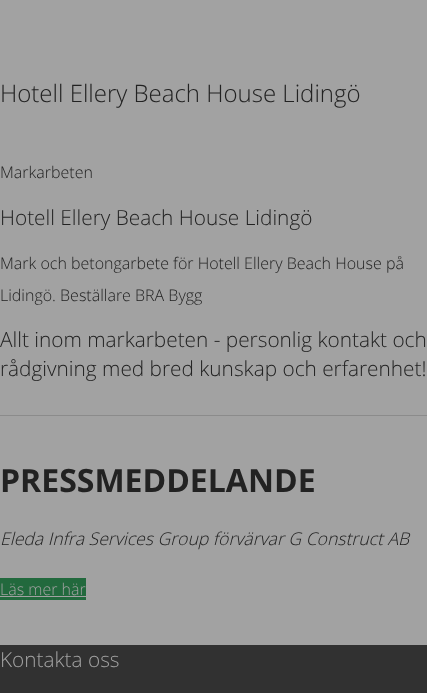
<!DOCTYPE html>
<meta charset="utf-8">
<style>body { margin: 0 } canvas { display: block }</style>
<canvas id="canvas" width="427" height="693"></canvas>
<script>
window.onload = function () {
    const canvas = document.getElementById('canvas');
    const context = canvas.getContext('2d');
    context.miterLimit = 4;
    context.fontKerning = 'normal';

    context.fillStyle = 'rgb(162, 162, 162)';
    context.fillRect(0, 0, 427, 693);
    context.fillStyle = 'rgb(139, 139, 139)';
    context.fillRect(0, 415, 427, 1);
    context.fillStyle = 'rgb(34, 105, 61)';
    context.fillRect(0, 578, 86, 22);
    context.fillStyle = 'rgb(162, 162, 162)';
    context.fillRect(0, 596, 86, 1);
    context.fillStyle = 'rgb(49, 49, 49)';
    context.fillRect(0, 645, 427, 48);
    context.font = '300 24px Open Sans';
    context.fillStyle = 'rgb(34, 34, 34)';
    context.fillText('Hotell Ellery Beach House Lidingö', 0, 102);
    context.font = '300 16px Open Sans';
    context.fillText('Markarbeten', 0, 178);
    context.font = '300 20.8px Open Sans';
    context.fillText('Hotell Ellery Beach House Lidingö', 0, 225);
    context.font = '300 16px Open Sans';
    context.fillText('Mark och betongarbete för Hotell Ellery Beach House på', 0, 269);
    context.fillText('Lidingö. Beställare BRA Bygg', 0, 301);
    context.font = '300 20.8px Open Sans';
    context.fillText('Allt inom markarbeten - personlig kontakt och', 0, 347);
    context.fillText('rådgivning med bred kunskap och erfarenhet!', 0, 376);
    context.font = 'bold 32px Open Sans';
    context.fillText('PRESSMEDDELANDE', 0, 492);
    context.font = 'italic 300 17.6px Open Sans';
    context.fillText('Eleda Infra Services Group förvärvar G Construct AB', 0, 545);
    context.font = '300 16px Open Sans';
    context.fillStyle = 'rgb(162, 162, 162)';
    context.fillText('Läs mer här', 0, 595);
    context.font = '300 20.8px Open Sans';
    context.fillText('Kontakta oss', 0, 667);
};
</script>
